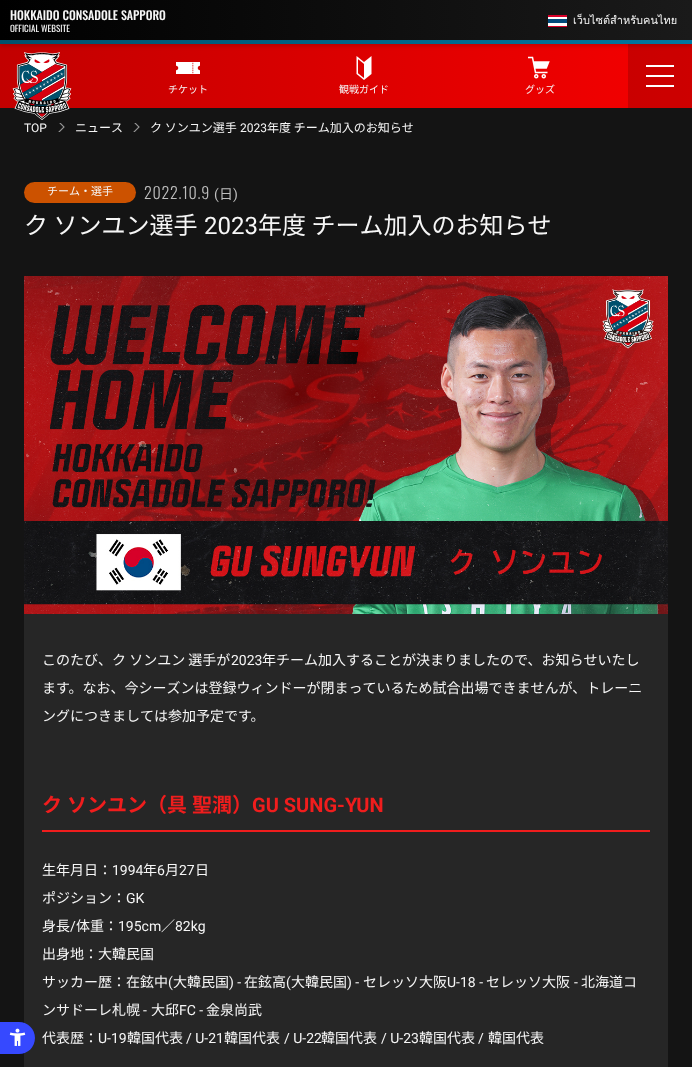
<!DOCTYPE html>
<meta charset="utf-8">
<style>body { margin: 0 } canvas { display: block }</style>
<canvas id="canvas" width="692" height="1067"></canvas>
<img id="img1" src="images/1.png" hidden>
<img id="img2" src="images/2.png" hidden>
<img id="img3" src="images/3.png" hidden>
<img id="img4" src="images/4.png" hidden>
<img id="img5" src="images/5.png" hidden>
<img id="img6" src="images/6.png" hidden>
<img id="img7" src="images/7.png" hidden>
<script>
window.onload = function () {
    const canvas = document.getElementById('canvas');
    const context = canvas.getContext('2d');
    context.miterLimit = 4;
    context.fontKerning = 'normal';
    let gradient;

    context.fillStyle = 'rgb(20, 20, 20)';
    context.fillRect(0, 0, 692, 1067);
    gradient = context.createLinearGradient(0, 76, 692, 76);
    gradient.addColorStop(0, 'rgb(194, 0, 0)');
    gradient.addColorStop(1, 'rgb(245, 0, 0)');
    context.fillStyle = gradient;
    context.fillRect(0, 44, 692, 64);
    context.fillStyle = 'rgba(0, 0, 0, 0.16)';
    context.filter = 'blur(2px)';
    context.beginPath();
    context.rect(0, 34, 692, 12);
    context.fill();
    context.filter = 'none';
    gradient = context.createLinearGradient(0, 16, 692, 16);
    gradient.addColorStop(0, 'rgb(0, 0, 0)');
    gradient.addColorStop(1, 'rgb(26, 26, 26)');
    context.fillStyle = gradient;
    context.fillRect(0, 0, 692, 32);
    context.fillStyle = 'rgb(255, 255, 255)';
    context.fillRect(548, 17, 19, 9);
    context.fillStyle = 'rgb(0, 74, 123)';
    context.fillRect(548, 19, 19, 4);
    context.fillStyle = 'rgb(214, 0, 41)';
    context.fillRect(548, 26, 19, 1);
    context.fillRect(548, 15, 19, 2);
    gradient = context.createLinearGradient(0, 38, 692, 38);
    gradient.addColorStop(0, 'rgb(0, 81, 109)');
    gradient.addColorStop(1, 'rgb(0, 119, 160)');
    context.fillStyle = gradient;
    context.fillRect(0, 40, 692, 4);
    gradient = context.createLinearGradient(0, 36, 692, 36);
    gradient.addColorStop(0, 'rgb(0, 0, 0)');
    gradient.addColorStop(1, 'rgb(26, 26, 26)');
    context.fillStyle = gradient;
    context.fillRect(0, 32, 692, 8);
    context.drawImage(document.getElementById('img1'), 12, 52, 60, 68);
    context.drawImage(document.getElementById('img2'), 176, 62, 24, 12);
    context.drawImage(document.getElementById('img3'), 356, 56, 16, 24);
    context.drawImage(document.getElementById('img4'), 528, 56, 22, 23);
    context.fillStyle = 'rgba(0, 0, 0, 0.16)';
    context.fillRect(628, 44, 64, 64);
    context.fillStyle = 'rgb(255, 255, 255)';
    context.fillRect(646, 65, 28, 2);
    context.fillRect(646, 75, 28, 2);
    context.fillRect(646, 85, 28, 2);
    context.fillStyle = 'rgb(38, 38, 38)';
    context.fillRect(24, 614, 644, 453);
    context.fillStyle = 'rgba(0, 0, 0, 0.4)';
    context.filter = 'blur(0.5px)';
    context.beginPath();
    context.roundRect(-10, 1022, 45, 32, 16);
    context.fill();
    context.filter = 'none';
    context.fillStyle = 'rgb(54, 73, 255)';
    context.beginPath();
    context.moveTo(-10, 1022);
    context.lineTo(19, 1022);
    context.bezierCurveTo(28, 1022, 35, 1029, 35, 1038);
    context.bezierCurveTo(35, 1047, 28, 1054, 19, 1054);
    context.lineTo(-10, 1054);
    context.closePath();
    context.fill();
    context.drawImage(document.getElementById('img5'), 9, 1028, 17, 18);
    context.drawImage(document.getElementById('img6'), 58, 123, 7, 9);
    context.drawImage(document.getElementById('img6'), 133, 123, 7, 9);
    context.fillStyle = 'rgb(204, 82, 0)';
    context.beginPath();
    context.roundRect(24, 182, 112, 21, 10.5);
    context.fill();
    context.drawImage(document.getElementById('img7'), 24, 276, 644, 338);
    context.fillStyle = 'rgb(240, 29, 29)';
    context.fillRect(42, 830, 608, 2);
    context.font = '500 12px Oswald';
    context.fillStyle = 'rgb(246, 246, 246)';
    context.fillText('HOKKAIDO CONSADOLE SAPPORO', 10, 20);
    context.font = '9px Oswald';
    context.fillText('OFFICIAL WEBSITE', 10, 32);
    context.font = '11px Loma';
    context.fillText('เว็บไซต์สำหรับคนไทย', 573, 24);
    context.font = '10px Noto Sans CJK JP';
    context.fillText('チケット', 168, 93);
    context.fillText('観戦ガイド', 339, 93);
    context.fillText('グッズ', 525, 93);
    context.font = '12px Roboto';
    context.fillText('TOP', 24, 132);
    context.font = '12px Noto Sans CJK JP';
    context.fillText('ニュース', 75, 132);
    context.fillText('ク ソンユン選手', 150, 132);
    context.font = '12px Roboto';
    context.fillText('2023', 240, 132);
    context.font = '12px Noto Sans CJK JP';
    context.fillText('年度 チーム加入のお知らせ', 267, 132);
    context.font = '11px Noto Sans CJK JP';
    context.fillText('チーム・選手', 47, 195);
    context.letterSpacing = '0.75px';
    context.font = '300 16px Oswald';
    context.fillStyle = 'rgb(190, 190, 190)';
    context.fillText('2022.10.9', 144, 199);
    context.letterSpacing = '0px';
    context.font = '14px Roboto';
    context.fillText('(', 214, 199);
    context.font = '14px Noto Sans CJK JP';
    context.fillText('日', 219, 199);
    context.font = '14px Roboto';
    context.fillText(')', 233, 199);
    context.font = '24px Noto Sans CJK JP';
    context.fillStyle = 'rgb(246, 246, 246)';
    context.fillText('ク ソンユン選手', 24, 234);
    context.font = '24px Roboto';
    context.fillText('2023', 204, 234);
    context.font = '24px Noto Sans CJK JP';
    context.fillText('年度 チーム加入のお知らせ', 258, 234);
    context.font = '14px Noto Sans CJK JP';
    context.fillText('このたび、ク ソンユン 選手が', 42, 665);
    context.font = '14px Roboto';
    context.fillText('2023', 231, 665);
    context.font = '14px Noto Sans CJK JP';
    context.fillText('年チーム加入することが決まりましたので、お知らせいたし', 262, 665);
    context.fillText('ます。なお、今シーズンは登録ウィンドーが閉まっているため試合出場できませんが、トレーニ', 42, 693);
    context.fillText('ングにつきましては参加予定です。', 42, 721);
    context.font = 'bold 20px Noto Sans CJK JP';
    context.fillStyle = 'rgb(240, 29, 29)';
    context.fillText('ク', 42, 812);
    context.fillText('ソンユン（具', 67, 812);
    context.fillText('聖潤）', 192, 812);
    context.font = 'bold 20px Roboto';
    context.fillText('GU SUNG-YUN', 252, 812);
    context.font = '14px Noto Sans CJK JP';
    context.fillStyle = 'rgb(246, 246, 246)';
    context.fillText('生年月日：', 42, 875);
    context.font = '14px Roboto';
    context.fillText('1994', 112, 875);
    context.font = '14px Noto Sans CJK JP';
    context.fillText('年', 143, 875);
    context.font = '14px Roboto';
    context.fillText('6', 157, 875);
    context.font = '14px Noto Sans CJK JP';
    context.fillText('月', 165, 875);
    context.font = '14px Roboto';
    context.fillText('27', 179, 875);
    context.font = '14px Noto Sans CJK JP';
    context.fillText('日', 195, 875);
    context.fillText('ポジション：', 42, 903);
    context.font = '14px Roboto';
    context.fillText('GK', 126, 903);
    context.font = '14px Noto Sans CJK JP';
    context.fillText('身長', 42, 931);
    context.font = '14px Roboto';
    context.fillText('/', 70, 931);
    context.font = '14px Noto Sans CJK JP';
    context.fillText('体重：', 76, 931);
    context.font = '14px Roboto';
    context.fillText('195cm', 118, 931);
    context.font = '14px Noto Sans CJK JP';
    context.fillText('／', 161, 931);
    context.font = '14px Roboto';
    context.fillText('82kg', 175, 931);
    context.font = '14px Noto Sans CJK JP';
    context.fillText('出身地：大韓民国', 42, 959);
    context.fillText('サッカー歴：在鉉中', 42, 987);
    context.font = '14px Roboto';
    context.fillText('(', 168, 987);
    context.font = '14px Noto Sans CJK JP';
    context.fillText('大韓民国', 173, 987);
    context.font = '14px Roboto';
    context.fillText(') -', 229, 987);
    context.font = '14px Noto Sans CJK JP';
    context.fillText('在鉉高', 244, 987);
    context.font = '14px Roboto';
    context.fillText('(', 286, 987);
    context.font = '14px Noto Sans CJK JP';
    context.fillText('大韓民国', 291, 987);
    context.font = '14px Roboto';
    context.fillText(') -', 347, 987);
    context.font = '14px Noto Sans CJK JP';
    context.fillText('セレッソ大阪', 363, 987);
    context.font = '14px Roboto';
    context.fillText('U-18 -', 447, 987);
    context.font = '14px Noto Sans CJK JP';
    context.fillText('セレッソ大阪', 486, 987);
    context.font = '14px Roboto';
    context.fillText('-', 574, 987);
    context.font = '14px Noto Sans CJK JP';
    context.fillText('北海道コ', 581, 987);
    context.fillText('ンサドーレ札幌', 42, 1015);
    context.font = '14px Roboto';
    context.fillText('-', 143, 1015);
    context.font = '14px Noto Sans CJK JP';
    context.fillText('大邱', 151, 1015);
    context.font = '14px Roboto';
    context.fillText('FC ‐', 179, 1015);
    context.font = '14px Noto Sans CJK JP';
    context.fillText('金泉尚武', 206, 1015);
    context.fillText('代表歴：', 42, 1043);
    context.font = '14px Roboto';
    context.fillText('U-19', 98, 1043);
    context.font = '14px Noto Sans CJK JP';
    context.fillText('韓国代表', 127, 1043);
    context.font = '14px Roboto';
    context.fillText('/ U-21', 186, 1043);
    context.font = '14px Noto Sans CJK JP';
    context.fillText('韓国代表', 224, 1043);
    context.font = '14px Roboto';
    context.fillText('/ U-22', 284, 1043);
    context.font = '14px Noto Sans CJK JP';
    context.fillText('韓国代表', 321, 1043);
    context.font = '14px Roboto';
    context.fillText('/ U-23', 381, 1043);
    context.font = '14px Noto Sans CJK JP';
    context.fillText('韓国代表', 419, 1043);
    context.font = '14px Roboto';
    context.fillText('/', 478, 1043);
    context.font = '14px Noto Sans CJK JP';
    context.fillText('韓国代表', 488, 1043);
};
</script>
